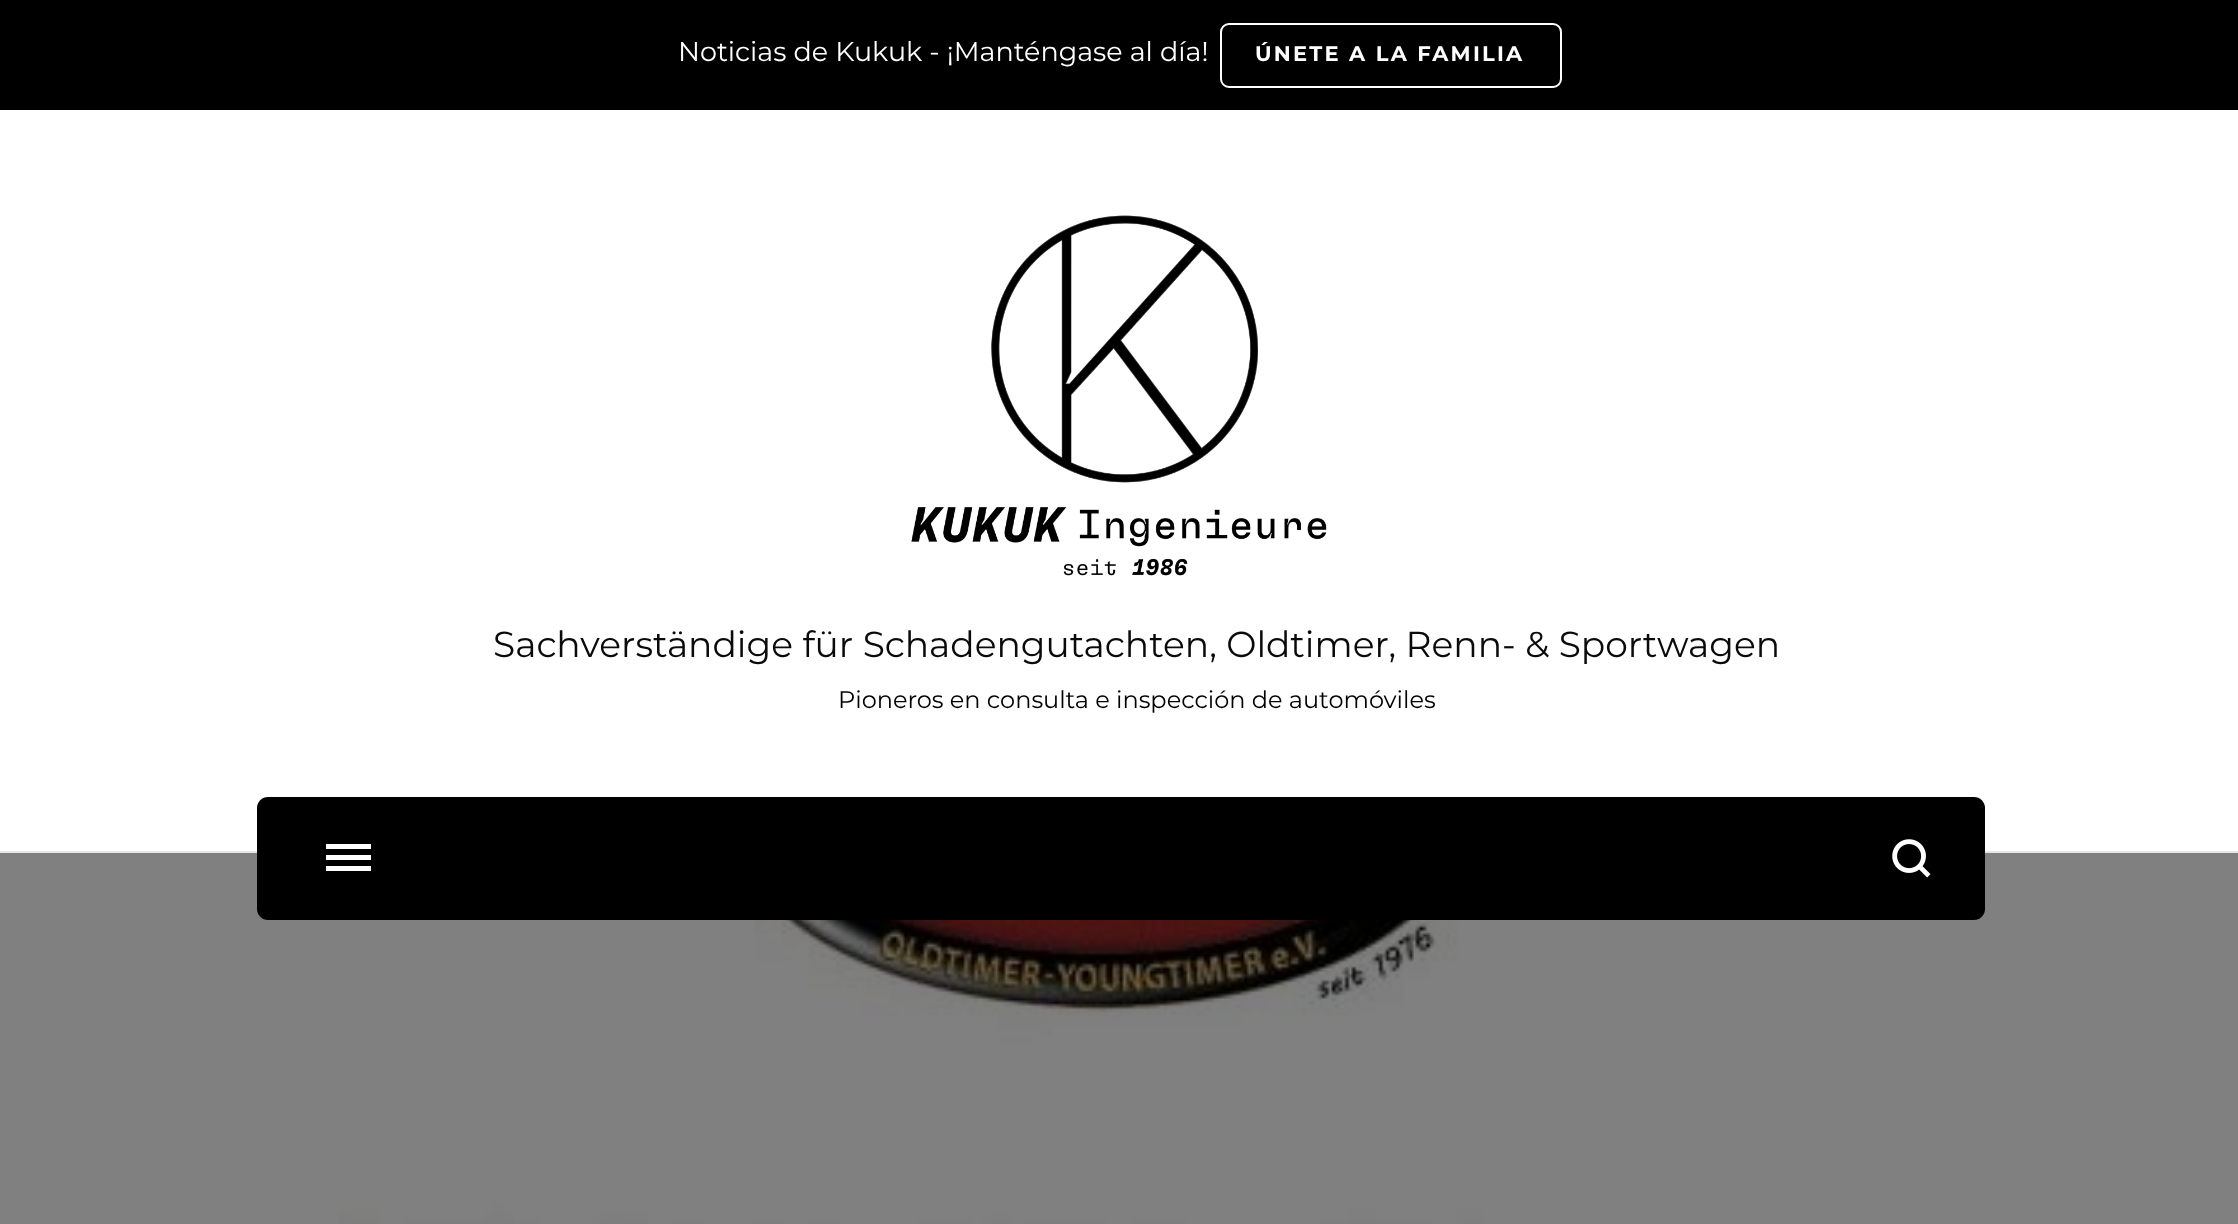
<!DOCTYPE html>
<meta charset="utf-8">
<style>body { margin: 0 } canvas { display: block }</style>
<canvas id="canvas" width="2238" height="1224"></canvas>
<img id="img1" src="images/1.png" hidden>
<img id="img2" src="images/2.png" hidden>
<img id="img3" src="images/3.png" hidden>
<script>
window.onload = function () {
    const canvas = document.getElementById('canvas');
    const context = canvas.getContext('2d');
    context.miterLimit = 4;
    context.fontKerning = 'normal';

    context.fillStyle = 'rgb(255, 255, 255)';
    context.fillRect(0, 0, 2238, 1224);
    context.fillStyle = 'rgb(128, 128, 128)';
    context.fillRect(0, 853, 2238, 371);
    context.fillStyle = 'rgb(0, 0, 0)';
    context.fillRect(0, 0, 2238, 110);
    context.beginPath();
    context.roundRect(1221, 24, 340, 63, 8);
    context.strokeStyle = 'rgb(255, 255, 255)';
    context.lineWidth = 2;
    context.stroke();
    context.drawImage(document.getElementById('img1'), 911, 215, 416, 361);
    context.fillStyle = 'rgba(0, 0, 0, 0.1)';
    context.fillRect(0, 851, 2238, 2);
    context.fillStyle = 'rgb(0, 0, 0)';
    context.beginPath();
    context.roundRect(257, 797, 1728, 123, 11);
    context.fill();
    context.fillStyle = 'rgb(255, 255, 255)';
    context.fillRect(326, 844, 45, 5);
    context.fillRect(326, 855, 45, 5);
    context.fillRect(326, 866, 45, 5);
    context.drawImage(document.getElementById('img2'), 1892, 839, 39, 39);
    context.drawImage(document.getElementById('img3'), 339, 920, 1144, 304);
    context.font = '27px Montserrat';
    context.fillText('Noticias de Kukuk - ¡Manténgase al día!', 678, 61);
    context.letterSpacing = '2.25px';
    context.font = 'bold 21px Montserrat';
    context.fillText('ÚNETE A LA FAMILIA', 1255, 61);
    context.letterSpacing = '0px';
    context.font = '36px Montserrat';
    context.fillStyle = 'rgb(10, 10, 10)';
    context.fillText('Sachverständige für Schadengutachten, Oldtimer, Renn- & Sportwagen', 493, 657);
    context.font = '24px Montserrat';
    context.fillStyle = 'rgb(0, 0, 0)';
    context.fillText('Pioneros en consulta e inspección de automóviles', 838, 708);
};
</script>
